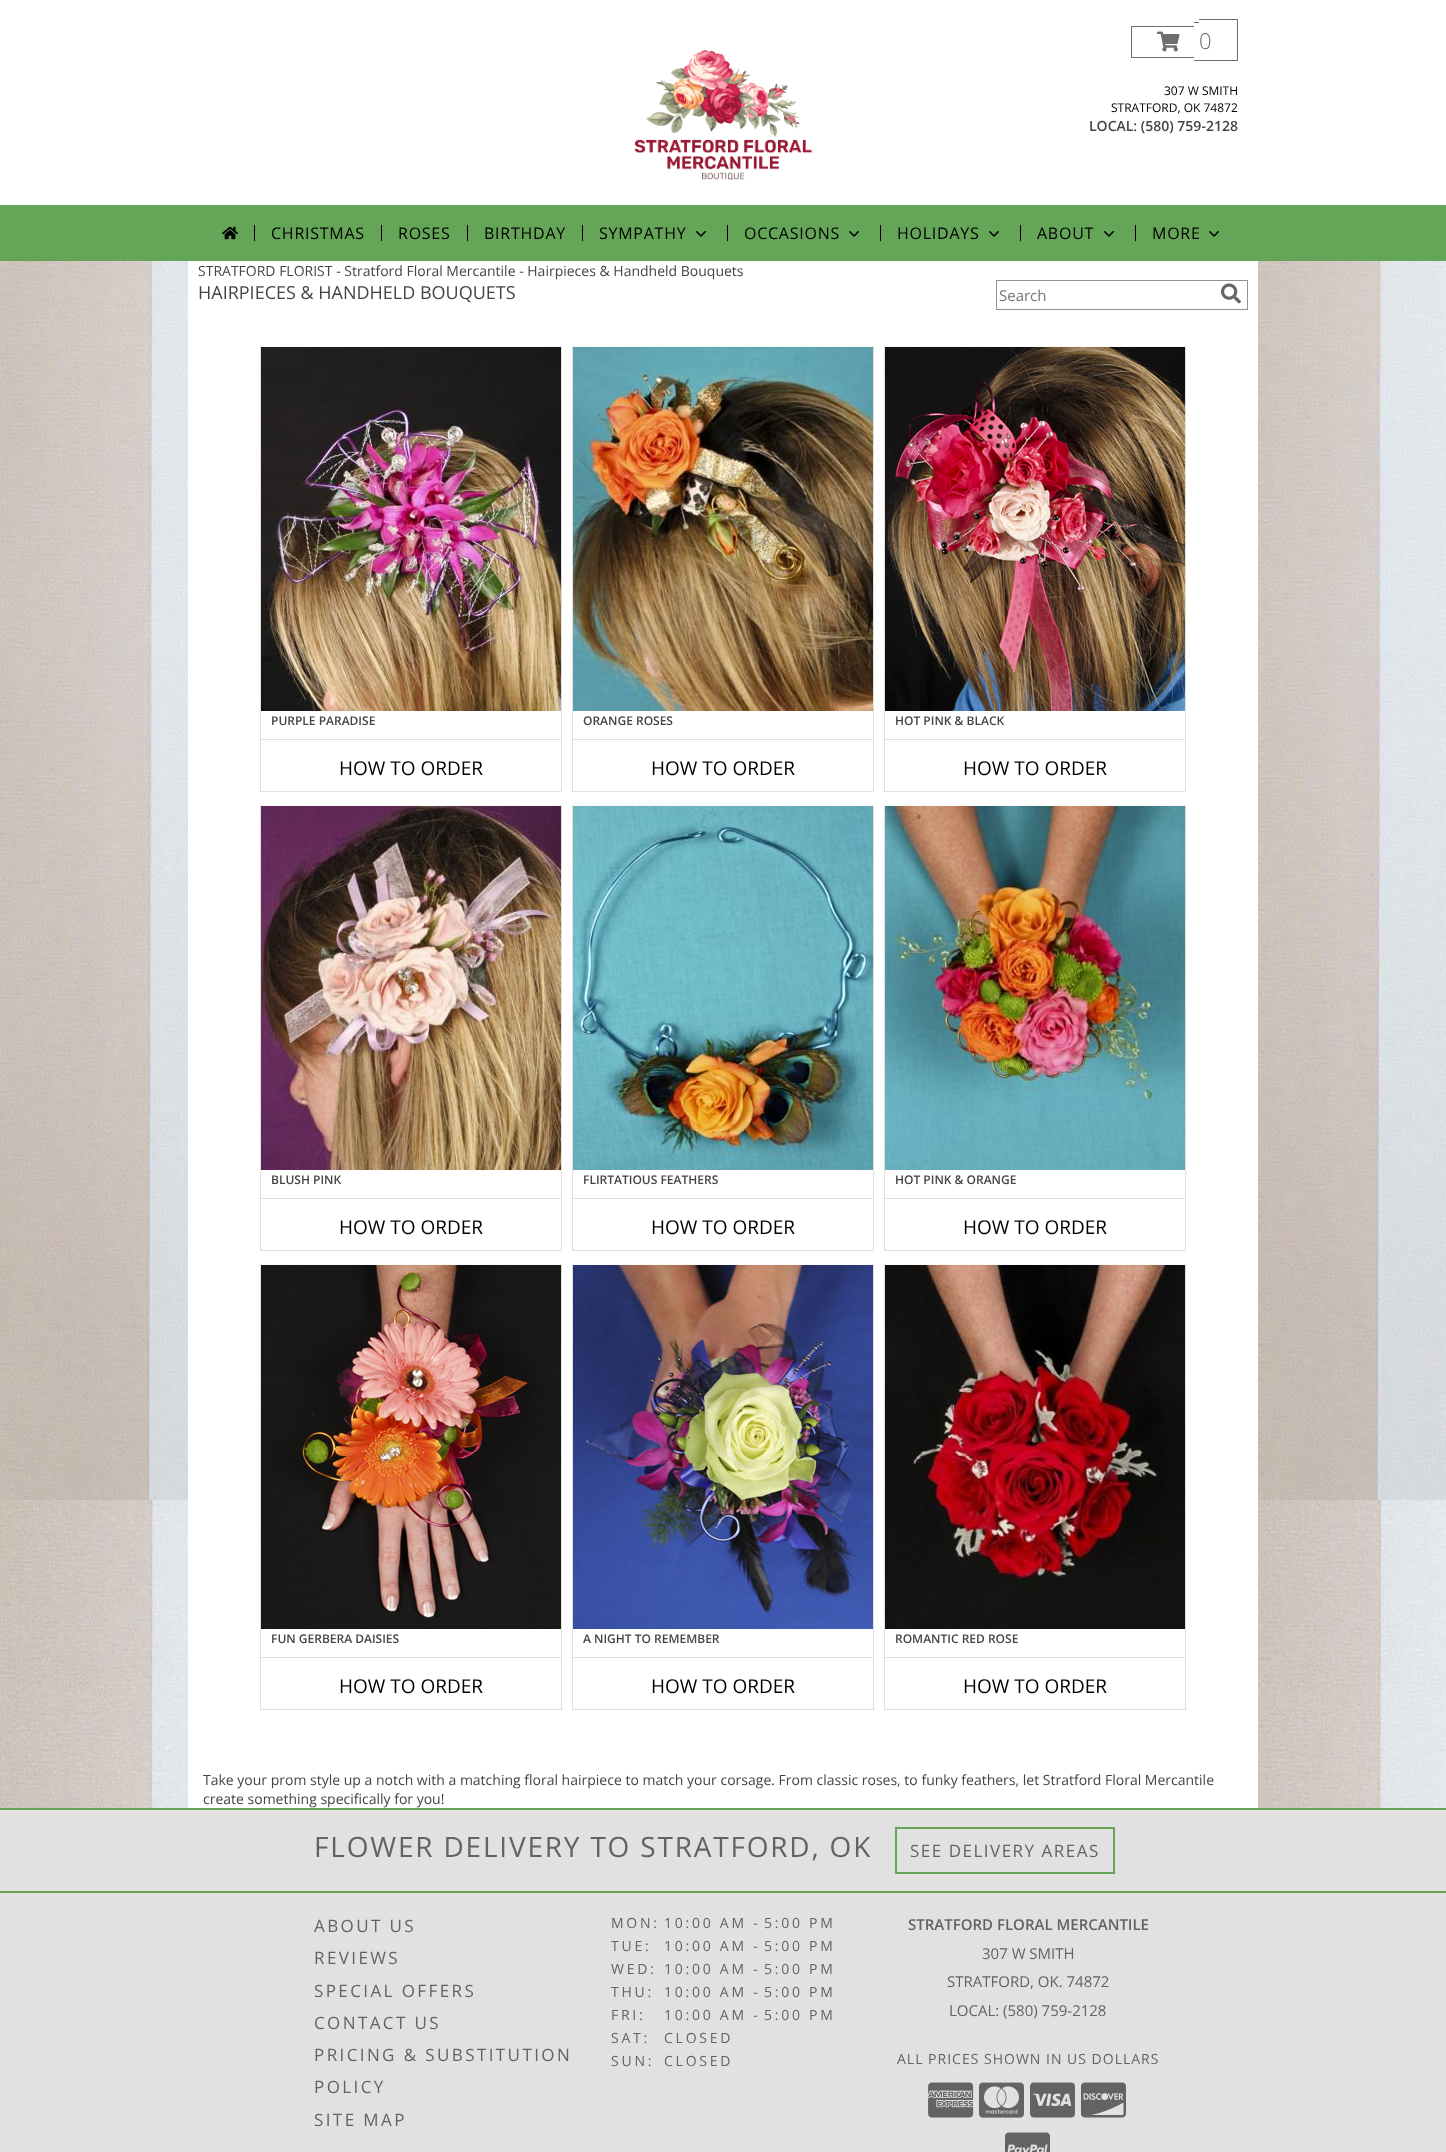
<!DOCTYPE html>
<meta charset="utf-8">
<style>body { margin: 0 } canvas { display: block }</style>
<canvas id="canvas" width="1446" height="2152"></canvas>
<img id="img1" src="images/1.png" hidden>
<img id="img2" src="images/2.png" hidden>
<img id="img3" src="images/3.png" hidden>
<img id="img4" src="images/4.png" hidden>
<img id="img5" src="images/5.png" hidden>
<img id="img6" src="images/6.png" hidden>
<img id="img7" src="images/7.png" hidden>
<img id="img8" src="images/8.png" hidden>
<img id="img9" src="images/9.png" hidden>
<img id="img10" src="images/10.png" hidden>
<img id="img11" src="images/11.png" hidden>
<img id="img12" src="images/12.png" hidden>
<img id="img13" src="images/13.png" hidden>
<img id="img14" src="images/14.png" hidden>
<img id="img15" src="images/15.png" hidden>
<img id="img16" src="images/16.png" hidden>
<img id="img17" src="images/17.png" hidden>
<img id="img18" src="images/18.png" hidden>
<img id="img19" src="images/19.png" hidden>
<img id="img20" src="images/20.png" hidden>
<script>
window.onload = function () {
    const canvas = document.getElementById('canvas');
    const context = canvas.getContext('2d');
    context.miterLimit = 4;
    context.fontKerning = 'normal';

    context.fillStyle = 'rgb(255, 255, 255)';
    context.fillRect(0, 0, 1446, 2152);
    context.drawImage(document.getElementById('img1'), 0, 261, 1446, 1547);
    context.fillRect(188, 261, 1070, 1547);
    context.drawImage(document.getElementById('img2'), 634, 50, 178, 130);
    context.fillStyle = 'rgb(110, 110, 110)';
    context.fillRect(1131, 26, 63, 1);
    context.fillRect(1131, 57, 63, 1);
    context.fillRect(1131, 26, 1, 32);
    context.fillRect(1194, 22, 5, 1);
    context.fillRect(1194, 60, 5, 1);
    context.fillRect(1199, 19, 39, 1);
    context.fillRect(1237, 19, 1, 42);
    context.fillRect(1199, 60, 39, 1);
    context.drawImage(document.getElementById('img3'), 1157, 31, 23, 21);
    context.fillStyle = 'rgb(101, 165, 87)';
    context.fillRect(0, 205, 1446, 56);
    context.drawImage(document.getElementById('img4'), 222, 226, 16, 14);
    context.fillStyle = 'rgb(0, 0, 0)';
    context.fillRect(254, 225, 1, 16);
    context.fillRect(381, 225, 1, 16);
    context.fillRect(467, 225, 1, 16);
    context.fillRect(582, 225, 1, 16);
    context.drawImage(document.getElementById('img5'), 696, 231, 10, 6);
    context.fillRect(727, 225, 1, 16);
    context.drawImage(document.getElementById('img5'), 849, 231, 10, 6);
    context.fillRect(880, 225, 1, 16);
    context.drawImage(document.getElementById('img5'), 989, 231, 10, 6);
    context.fillRect(1020, 225, 1, 16);
    context.drawImage(document.getElementById('img5'), 1104, 231, 10, 6);
    context.fillRect(1135, 225, 1, 16);
    context.drawImage(document.getElementById('img5'), 1209, 231, 10, 6);
    context.strokeStyle = 'rgb(145, 145, 145)';
    context.strokeRect(996.5, 280.5, 251, 29);
    context.drawImage(document.getElementById('img6'), 1221, 283, 20, 21);
    context.fillStyle = 'rgb(249, 249, 249)';
    context.fillRect(260, 346, 302, 1);
    context.fillStyle = 'rgb(226, 222, 221)';
    context.fillRect(561, 346, 1, 446);
    context.fillRect(260, 791, 302, 1);
    context.fillRect(260, 346, 1, 446);
    context.drawImage(document.getElementById('img7'), 261, 347, 300, 364);
    context.fillRect(261, 739, 300, 1);
    context.fillStyle = 'rgb(249, 249, 249)';
    context.fillRect(572, 346, 302, 1);
    context.fillStyle = 'rgb(226, 222, 221)';
    context.fillRect(873, 346, 1, 446);
    context.fillRect(572, 791, 302, 1);
    context.fillRect(572, 346, 1, 446);
    context.drawImage(document.getElementById('img8'), 573, 347, 300, 364);
    context.fillRect(573, 739, 300, 1);
    context.fillStyle = 'rgb(249, 249, 249)';
    context.fillRect(884, 346, 302, 1);
    context.fillStyle = 'rgb(226, 222, 221)';
    context.fillRect(1185, 346, 1, 446);
    context.fillRect(884, 791, 302, 1);
    context.fillRect(884, 346, 1, 446);
    context.drawImage(document.getElementById('img9'), 885, 347, 300, 364);
    context.fillRect(885, 739, 300, 1);
    context.fillStyle = 'rgb(249, 249, 249)';
    context.fillRect(260, 805, 302, 1);
    context.fillStyle = 'rgb(226, 222, 221)';
    context.fillRect(561, 805, 1, 446);
    context.fillRect(260, 1250, 302, 1);
    context.fillRect(260, 805, 1, 446);
    context.drawImage(document.getElementById('img10'), 261, 806, 300, 364);
    context.fillRect(261, 1198, 300, 1);
    context.fillStyle = 'rgb(249, 249, 249)';
    context.fillRect(572, 805, 302, 1);
    context.fillStyle = 'rgb(226, 222, 221)';
    context.fillRect(873, 805, 1, 446);
    context.fillRect(572, 1250, 302, 1);
    context.fillRect(572, 805, 1, 446);
    context.drawImage(document.getElementById('img11'), 573, 806, 300, 364);
    context.fillRect(573, 1198, 300, 1);
    context.fillStyle = 'rgb(249, 249, 249)';
    context.fillRect(884, 805, 302, 1);
    context.fillStyle = 'rgb(226, 222, 221)';
    context.fillRect(1185, 805, 1, 446);
    context.fillRect(884, 1250, 302, 1);
    context.fillRect(884, 805, 1, 446);
    context.drawImage(document.getElementById('img12'), 885, 806, 300, 364);
    context.fillRect(885, 1198, 300, 1);
    context.fillStyle = 'rgb(249, 249, 249)';
    context.fillRect(260, 1264, 302, 1);
    context.fillStyle = 'rgb(226, 222, 221)';
    context.fillRect(561, 1264, 1, 446);
    context.fillRect(260, 1709, 302, 1);
    context.fillRect(260, 1264, 1, 446);
    context.drawImage(document.getElementById('img13'), 261, 1265, 300, 364);
    context.fillRect(261, 1657, 300, 1);
    context.fillStyle = 'rgb(249, 249, 249)';
    context.fillRect(572, 1264, 302, 1);
    context.fillStyle = 'rgb(226, 222, 221)';
    context.fillRect(873, 1264, 1, 446);
    context.fillRect(572, 1709, 302, 1);
    context.fillRect(572, 1264, 1, 446);
    context.drawImage(document.getElementById('img14'), 573, 1265, 300, 364);
    context.fillRect(573, 1657, 300, 1);
    context.fillStyle = 'rgb(249, 249, 249)';
    context.fillRect(884, 1264, 302, 1);
    context.fillStyle = 'rgb(226, 222, 221)';
    context.fillRect(1185, 1264, 1, 446);
    context.fillRect(884, 1709, 302, 1);
    context.fillRect(884, 1264, 1, 446);
    context.drawImage(document.getElementById('img15'), 885, 1265, 300, 364);
    context.fillRect(885, 1657, 300, 1);
    context.fillStyle = 'rgb(225, 225, 225)';
    context.fillRect(0, 1810, 1446, 81);
    context.fillStyle = 'rgb(101, 165, 87)';
    context.fillRect(0, 1808, 1446, 2);
    context.fillRect(0, 1891, 1446, 2);
    context.strokeStyle = 'rgb(101, 165, 87)';
    context.lineWidth = 2;
    context.strokeRect(896, 1828, 218, 45);
    context.fillStyle = 'rgb(225, 225, 225)';
    context.fillRect(0, 1893, 1446, 259);
    context.drawImage(document.getElementById('img16'), 928, 2082, 46, 36);
    context.drawImage(document.getElementById('img17'), 979, 2082, 45, 36);
    context.drawImage(document.getElementById('img18'), 1030, 2082, 45, 36);
    context.drawImage(document.getElementById('img19'), 1081, 2082, 45, 36);
    context.drawImage(document.getElementById('img20'), 1005, 2132, 45, 20);
    context.font = '300 22px Open Sans';
    context.fillStyle = 'rgb(110, 110, 110)';
    context.fillText('0', 1199, 49);
    context.font = '12px Open Sans';
    context.fillStyle = 'rgb(0, 0, 0)';
    context.fillText('307 W SMITH', 1164, 95);
    context.fillText('STRATFORD, OK 74872', 1111, 112);
    context.font = '600 14px Open Sans';
    context.fillStyle = 'rgb(68, 68, 68)';
    context.fillText('LOCAL: (580) 759-2128', 1089, 131);
    context.letterSpacing = '0.75px';
    context.font = '16px Open Sans';
    context.fillStyle = 'rgb(0, 0, 0)';
    context.fillText('CHRISTMAS', 271, 239);
    context.fillText('ROSES', 398, 239);
    context.fillText('BIRTHDAY', 484, 239);
    context.fillText('SYMPATHY', 599, 239);
    context.fillText('OCCASIONS', 744, 239);
    context.fillText('HOLIDAYS', 897, 239);
    context.fillText('ABOUT', 1037, 239);
    context.fillText('MORE', 1152, 239);
    context.letterSpacing = '0px';
    context.font = '14px Open Sans';
    context.fillStyle = 'rgb(68, 68, 68)';
    context.fillText('STRATFORD FLORIST - Stratford Floral Mercantile - Hairpieces & Handheld Bouquets', 198, 276);
    context.font = '18px Open Sans';
    context.fillText('HAIRPIECES & HANDHELD BOUQUETS', 198, 299);
    context.font = '15px Open Sans';
    context.fillStyle = 'rgb(117, 117, 117)';
    context.fillText('Search', 999, 301);
    context.font = '600 12px Open Sans';
    context.fillStyle = 'rgb(68, 68, 68)';
    context.fillText('PURPLE PARADISE', 271, 725);
    context.font = '19px Open Sans';
    context.fillStyle = 'rgb(0, 0, 0)';
    context.fillText('HOW TO ORDER', 339, 775);
    context.font = '600 12px Open Sans';
    context.fillStyle = 'rgb(68, 68, 68)';
    context.fillText('ORANGE ROSES', 583, 725);
    context.font = '19px Open Sans';
    context.fillStyle = 'rgb(0, 0, 0)';
    context.fillText('HOW TO ORDER', 651, 775);
    context.font = '600 12px Open Sans';
    context.fillStyle = 'rgb(68, 68, 68)';
    context.fillText('HOT PINK & BLACK', 895, 725);
    context.font = '19px Open Sans';
    context.fillStyle = 'rgb(0, 0, 0)';
    context.fillText('HOW TO ORDER', 963, 775);
    context.font = '600 12px Open Sans';
    context.fillStyle = 'rgb(68, 68, 68)';
    context.fillText('BLUSH PINK', 271, 1184);
    context.font = '19px Open Sans';
    context.fillStyle = 'rgb(0, 0, 0)';
    context.fillText('HOW TO ORDER', 339, 1234);
    context.font = '600 12px Open Sans';
    context.fillStyle = 'rgb(68, 68, 68)';
    context.fillText('FLIRTATIOUS FEATHERS', 583, 1184);
    context.font = '19px Open Sans';
    context.fillStyle = 'rgb(0, 0, 0)';
    context.fillText('HOW TO ORDER', 651, 1234);
    context.font = '600 12px Open Sans';
    context.fillStyle = 'rgb(68, 68, 68)';
    context.fillText('HOT PINK & ORANGE', 895, 1184);
    context.font = '19px Open Sans';
    context.fillStyle = 'rgb(0, 0, 0)';
    context.fillText('HOW TO ORDER', 963, 1234);
    context.font = '600 12px Open Sans';
    context.fillStyle = 'rgb(68, 68, 68)';
    context.fillText('FUN GERBERA DAISIES', 271, 1643);
    context.font = '19px Open Sans';
    context.fillStyle = 'rgb(0, 0, 0)';
    context.fillText('HOW TO ORDER', 339, 1693);
    context.font = '600 12px Open Sans';
    context.fillStyle = 'rgb(68, 68, 68)';
    context.fillText('A NIGHT TO REMEMBER', 583, 1643);
    context.font = '19px Open Sans';
    context.fillStyle = 'rgb(0, 0, 0)';
    context.fillText('HOW TO ORDER', 651, 1693);
    context.font = '600 12px Open Sans';
    context.fillStyle = 'rgb(68, 68, 68)';
    context.fillText('ROMANTIC RED ROSE', 895, 1643);
    context.font = '19px Open Sans';
    context.fillStyle = 'rgb(0, 0, 0)';
    context.fillText('HOW TO ORDER', 963, 1693);
    context.font = '14px Open Sans';
    context.fillStyle = 'rgb(68, 68, 68)';
    context.fillText('Take your prom style up a notch with a matching floral hairpiece to match your corsage. From classic roses, to funky feathers, let Stratford Floral Mercantile', 203, 1785);
    context.fillText('create something specifically for you!', 203, 1804);
    context.letterSpacing = '1.8px';
    context.font = '28px Open Sans';
    context.fillStyle = 'rgb(99, 99, 99)';
    context.fillText('FLOWER DELIVERY TO STRATFORD, OK', 314, 1857);
    context.letterSpacing = '1.5px';
    context.font = '17px Open Sans';
    context.fillText('SEE DELIVERY AREAS', 910, 1857);
    context.letterSpacing = '2.4px';
    context.fillText('ABOUT US', 314, 1932);
    context.fillText('REVIEWS', 314, 1964);
    context.fillText('SPECIAL OFFERS', 314, 1997);
    context.fillText('CONTACT US', 314, 2029);
    context.fillText('PRICING & SUBSTITUTION', 314, 2061);
    context.fillText('POLICY', 314, 2093);
    context.fillText('SITE MAP', 314, 2126);
    context.letterSpacing = '2.75px';
    context.font = '14px Open Sans';
    context.fillText('MON:', 611, 1928);
    context.fillText('10:00 AM -', 664, 1928);
    context.fillText('5:00 PM', 764, 1928);
    context.fillText('TUE:', 611, 1951);
    context.fillText('10:00 AM -', 664, 1951);
    context.fillText('5:00 PM', 764, 1951);
    context.fillText('WED:', 611, 1974);
    context.fillText('10:00 AM -', 664, 1974);
    context.fillText('5:00 PM', 764, 1974);
    context.fillText('THU:', 611, 1997);
    context.fillText('10:00 AM -', 664, 1997);
    context.fillText('5:00 PM', 764, 1997);
    context.fillText('FRI:', 611, 2020);
    context.fillText('10:00 AM -', 664, 2020);
    context.fillText('5:00 PM', 764, 2020);
    context.fillText('SAT:', 611, 2043);
    context.fillText('CLOSED', 664, 2043);
    context.fillText('SUN:', 611, 2066);
    context.fillText('CLOSED', 664, 2066);
    context.letterSpacing = '0px';
    context.font = '600 15px Open Sans';
    context.fillText('STRATFORD FLORAL MERCANTILE', 908, 1930);
    context.font = '15px Open Sans';
    context.fillText('307 W SMITH', 982, 1959);
    context.fillText('STRATFORD, OK. 74872', 947, 1987);
    context.fillText('LOCAL: (580) 759-2128', 949, 2016);
    context.letterSpacing = '1px';
    context.font = '14px Open Sans';
    context.fillText('ALL PRICES SHOWN IN US DOLLARS', 897, 2064);
};
</script>
